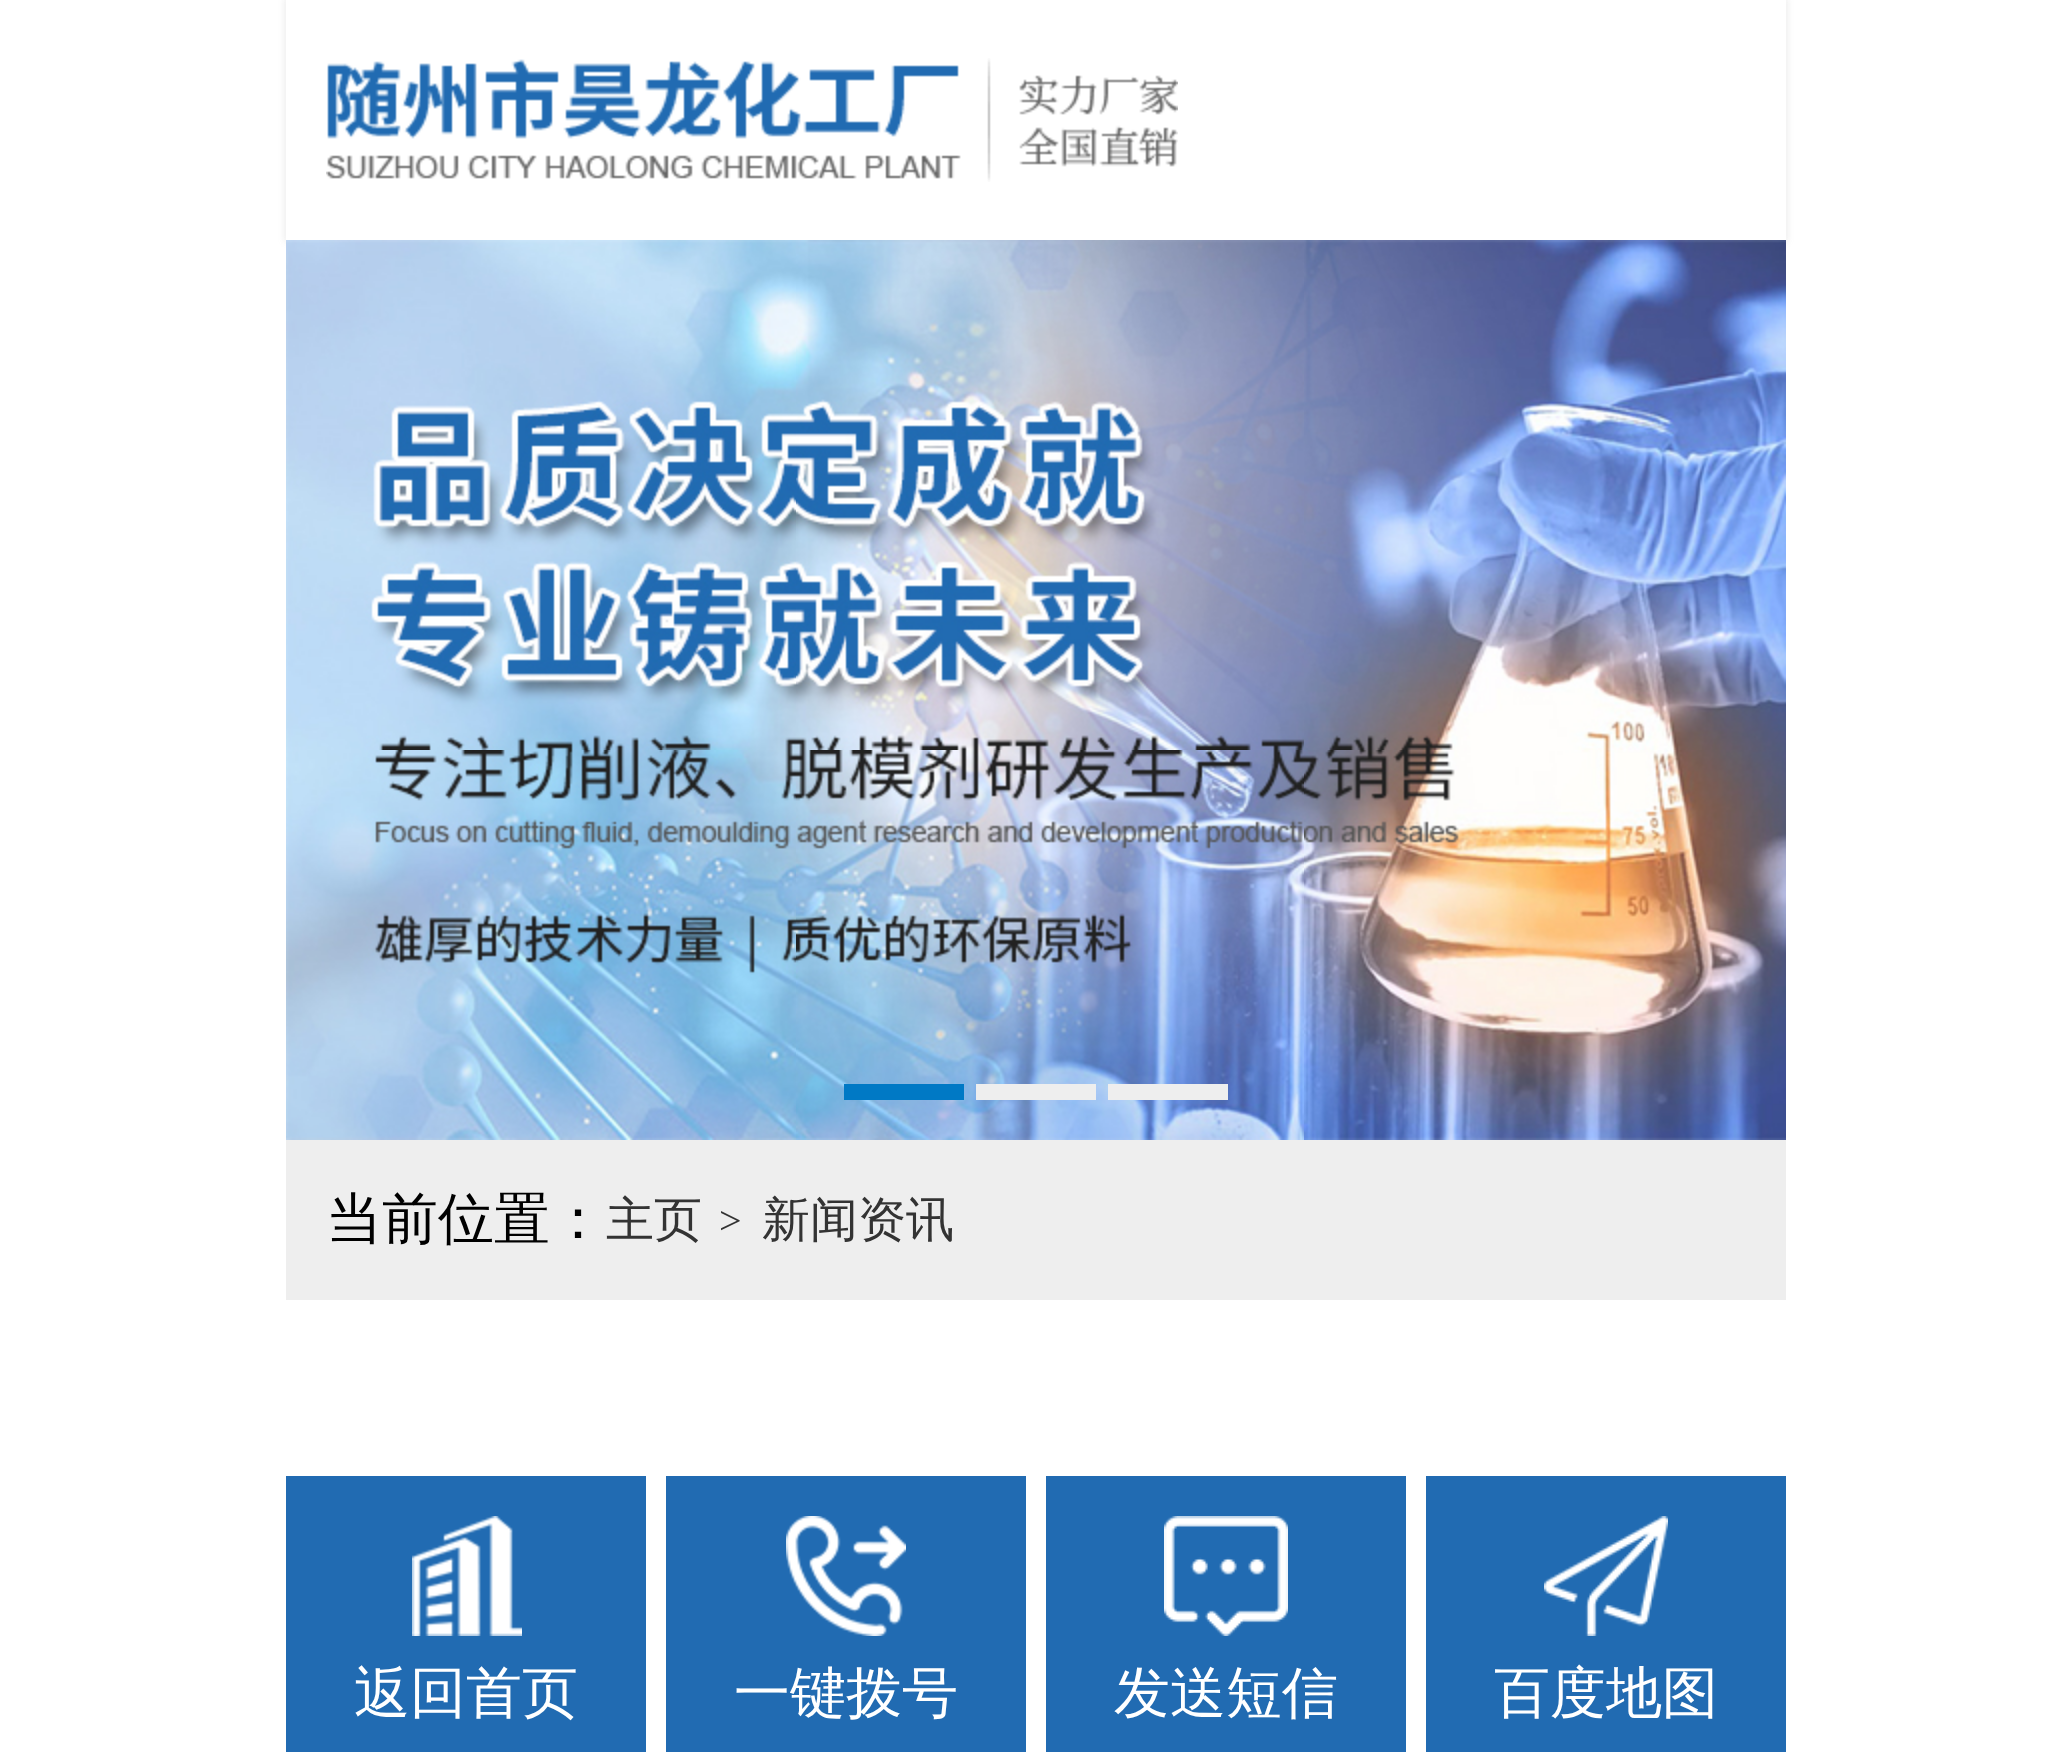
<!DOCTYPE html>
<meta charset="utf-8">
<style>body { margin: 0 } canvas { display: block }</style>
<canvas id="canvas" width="2072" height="1752"></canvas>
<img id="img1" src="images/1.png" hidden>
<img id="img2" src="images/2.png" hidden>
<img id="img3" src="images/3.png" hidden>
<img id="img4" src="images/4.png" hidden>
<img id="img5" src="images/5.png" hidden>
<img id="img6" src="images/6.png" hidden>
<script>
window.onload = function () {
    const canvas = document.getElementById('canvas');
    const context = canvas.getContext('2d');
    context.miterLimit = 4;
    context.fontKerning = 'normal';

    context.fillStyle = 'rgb(255, 255, 255)';
    context.fillRect(0, 0, 2072, 1752);
    context.save();
    context.beginPath();
    context.moveTo(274, 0);
    context.lineTo(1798, 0);
    context.lineTo(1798, 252);
    context.lineTo(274, 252);
    context.closePath();
    context.moveTo(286, 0);
    context.lineTo(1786, 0);
    context.lineTo(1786, 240);
    context.lineTo(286, 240);
    context.closePath();
    context.clip('evenodd');
    context.fillStyle = 'rgb(238, 238, 238)';
    context.filter = 'blur(3px)';
    context.beginPath();
    context.rect(284, -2, 1504, 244);
    context.fill();
    context.filter = 'none';
    context.restore();
    context.drawImage(document.getElementById('img1'), 326, 58, 852, 124);
    context.drawImage(document.getElementById('img2'), 286, 240, 1500, 900);
    context.fillStyle = 'rgb(0, 121, 197)';
    context.fillRect(844, 1084, 120, 16);
    context.fillStyle = 'rgb(238, 238, 238)';
    context.fillRect(976, 1084, 120, 16);
    context.fillRect(1108, 1084, 120, 16);
    context.fillRect(286, 1140, 1500, 160);
    context.fillStyle = 'rgb(33, 107, 178)';
    context.fillRect(286, 1476, 360, 276);
    context.drawImage(document.getElementById('img3'), 412, 1516, 110, 120);
    context.fillRect(666, 1476, 360, 276);
    context.drawImage(document.getElementById('img4'), 786, 1516, 120, 120);
    context.fillRect(1046, 1476, 360, 276);
    context.drawImage(document.getElementById('img5'), 1164, 1516, 124, 120);
    context.fillRect(1426, 1476, 360, 276);
    context.drawImage(document.getElementById('img6'), 1544, 1516, 124, 120);
    context.font = '500 56px WenQuanYi Zen Hei';
    context.fillStyle = 'rgb(0, 0, 0)';
    context.fillText('当前位置：', 326, 1238);
    context.font = '500 48px WenQuanYi Zen Hei';
    context.fillStyle = 'rgb(51, 51, 51)';
    context.fillText('主页', 606, 1236);
    context.font = '40px Liberation Serif';
    context.fillText('>', 719, 1234);
    context.font = '500 48px WenQuanYi Zen Hei';
    context.fillText('新闻资讯', 762, 1236);
    context.font = '500 56px WenQuanYi Zen Hei';
    context.fillStyle = 'rgb(255, 255, 255)';
    context.fillText('返回首页', 354, 1712);
    context.fillText('一键拨号', 734, 1712);
    context.fillText('发送短信', 1114, 1712);
    context.fillText('百度地图', 1494, 1712);
};
</script>
